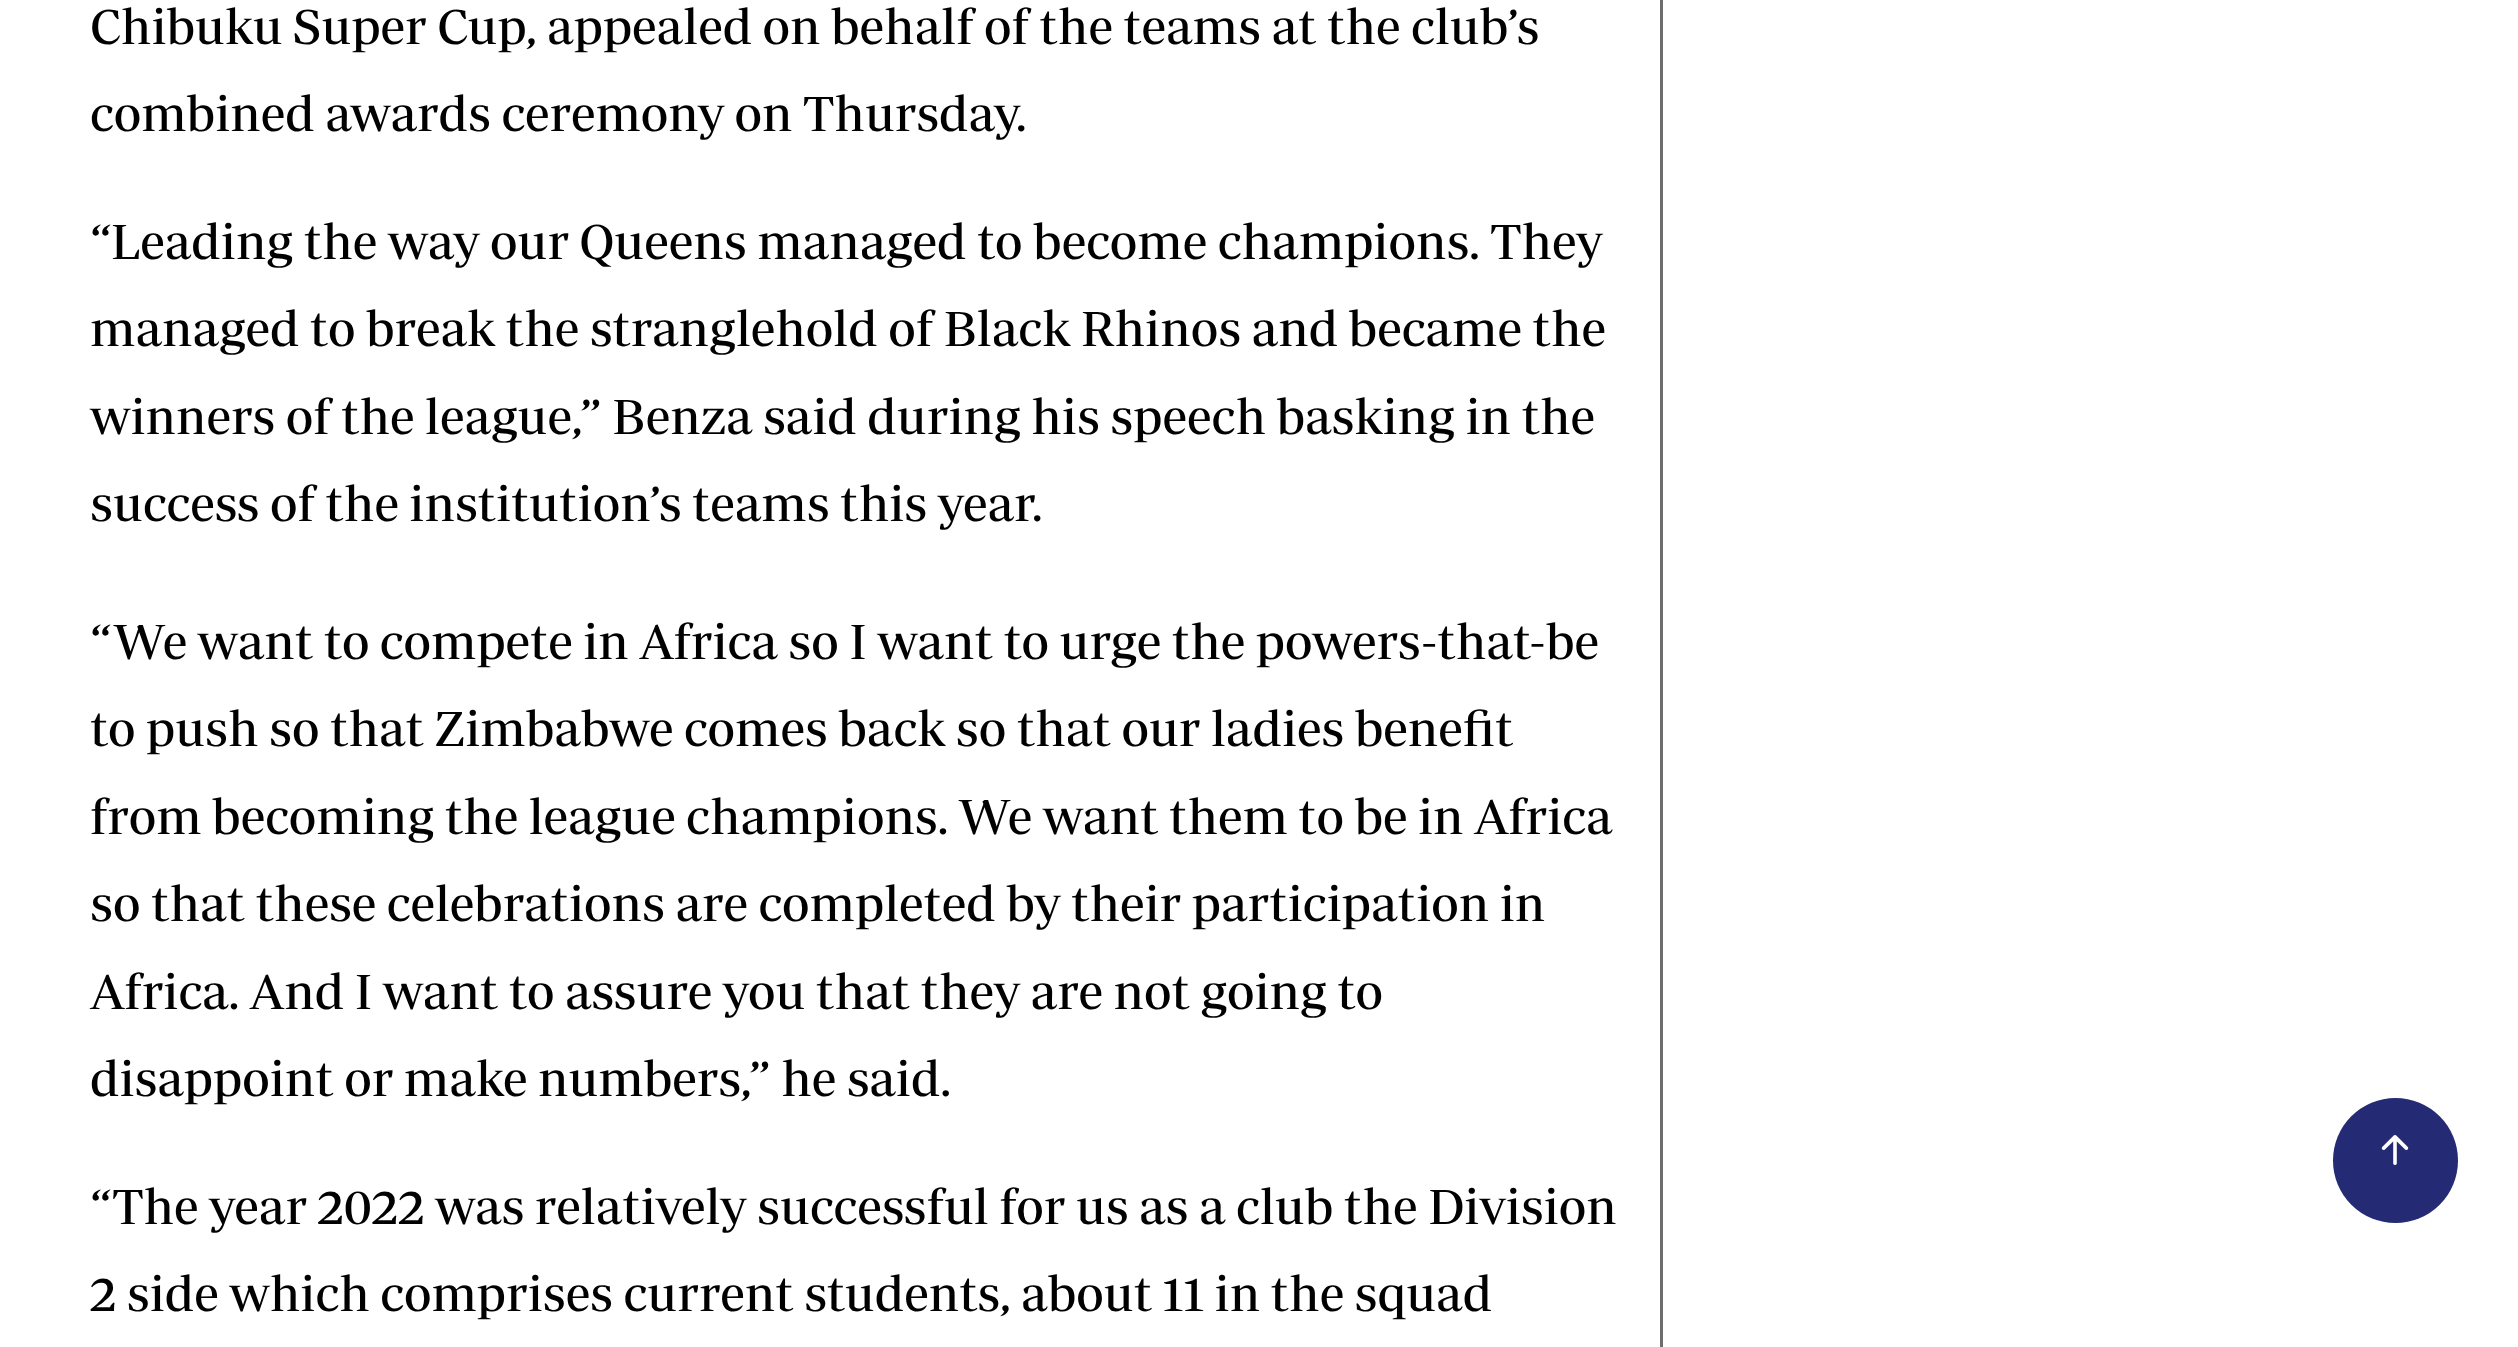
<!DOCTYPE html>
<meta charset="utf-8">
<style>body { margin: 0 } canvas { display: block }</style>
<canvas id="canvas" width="2518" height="1347"></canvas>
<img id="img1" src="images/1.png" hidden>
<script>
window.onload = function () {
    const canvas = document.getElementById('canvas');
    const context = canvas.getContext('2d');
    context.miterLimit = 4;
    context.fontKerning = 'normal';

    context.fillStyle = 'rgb(255, 255, 255)';
    context.fillRect(0, 0, 2518, 1347);
    context.fillStyle = 'rgb(110, 109, 109)';
    context.fillRect(1660, 0, 3, 1347);
    context.fillStyle = 'rgb(36, 42, 116)';
    context.beginPath();
    context.arc(2395.5, 1160.5, 62.5, 0, 2 * Math.PI);
    context.fill();
    context.drawImage(document.getElementById('img1'), 2381, 1135, 28, 30);
    context.font = '50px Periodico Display';
    context.fillStyle = 'rgb(0, 0, 0)';
    context.fillText('Chibuku Super Cup, appealed on behalf of the teams at the club’s', 90, 44);
    context.fillText('combined awards ceremony on Thursday.', 90, 131);
    context.fillText('“Leading the way our Queens managed to become champions. They', 90, 259);
    context.fillText('managed to break the stranglehold of Black Rhinos and became the', 90, 346);
    context.fillText('winners of the league,” Benza said during his speech basking in the', 90, 434);
    context.fillText('success of the institution’s teams this year.', 90, 521);
    context.fillText('“We want to compete in Africa so I want to urge the powers-that-be', 90, 659);
    context.fillText('to push so that Zimbabwe comes back so that our ladies benefit', 90, 746);
    context.fillText('from becoming the league champions. We want them to be in Africa', 90, 834);
    context.fillText('so that these celebrations are completed by their participation in', 90, 921);
    context.fillText('Africa. And I want to assure you that they are not going to', 90, 1009);
    context.fillText('disappoint or make numbers,” he said.', 90, 1096);
    context.fillText('“The year 2022 was relatively successful for us as a club the Division', 90, 1224);
    context.fillText('2 side which comprises current students, about 11 in the squad', 90, 1311);
};
</script>
